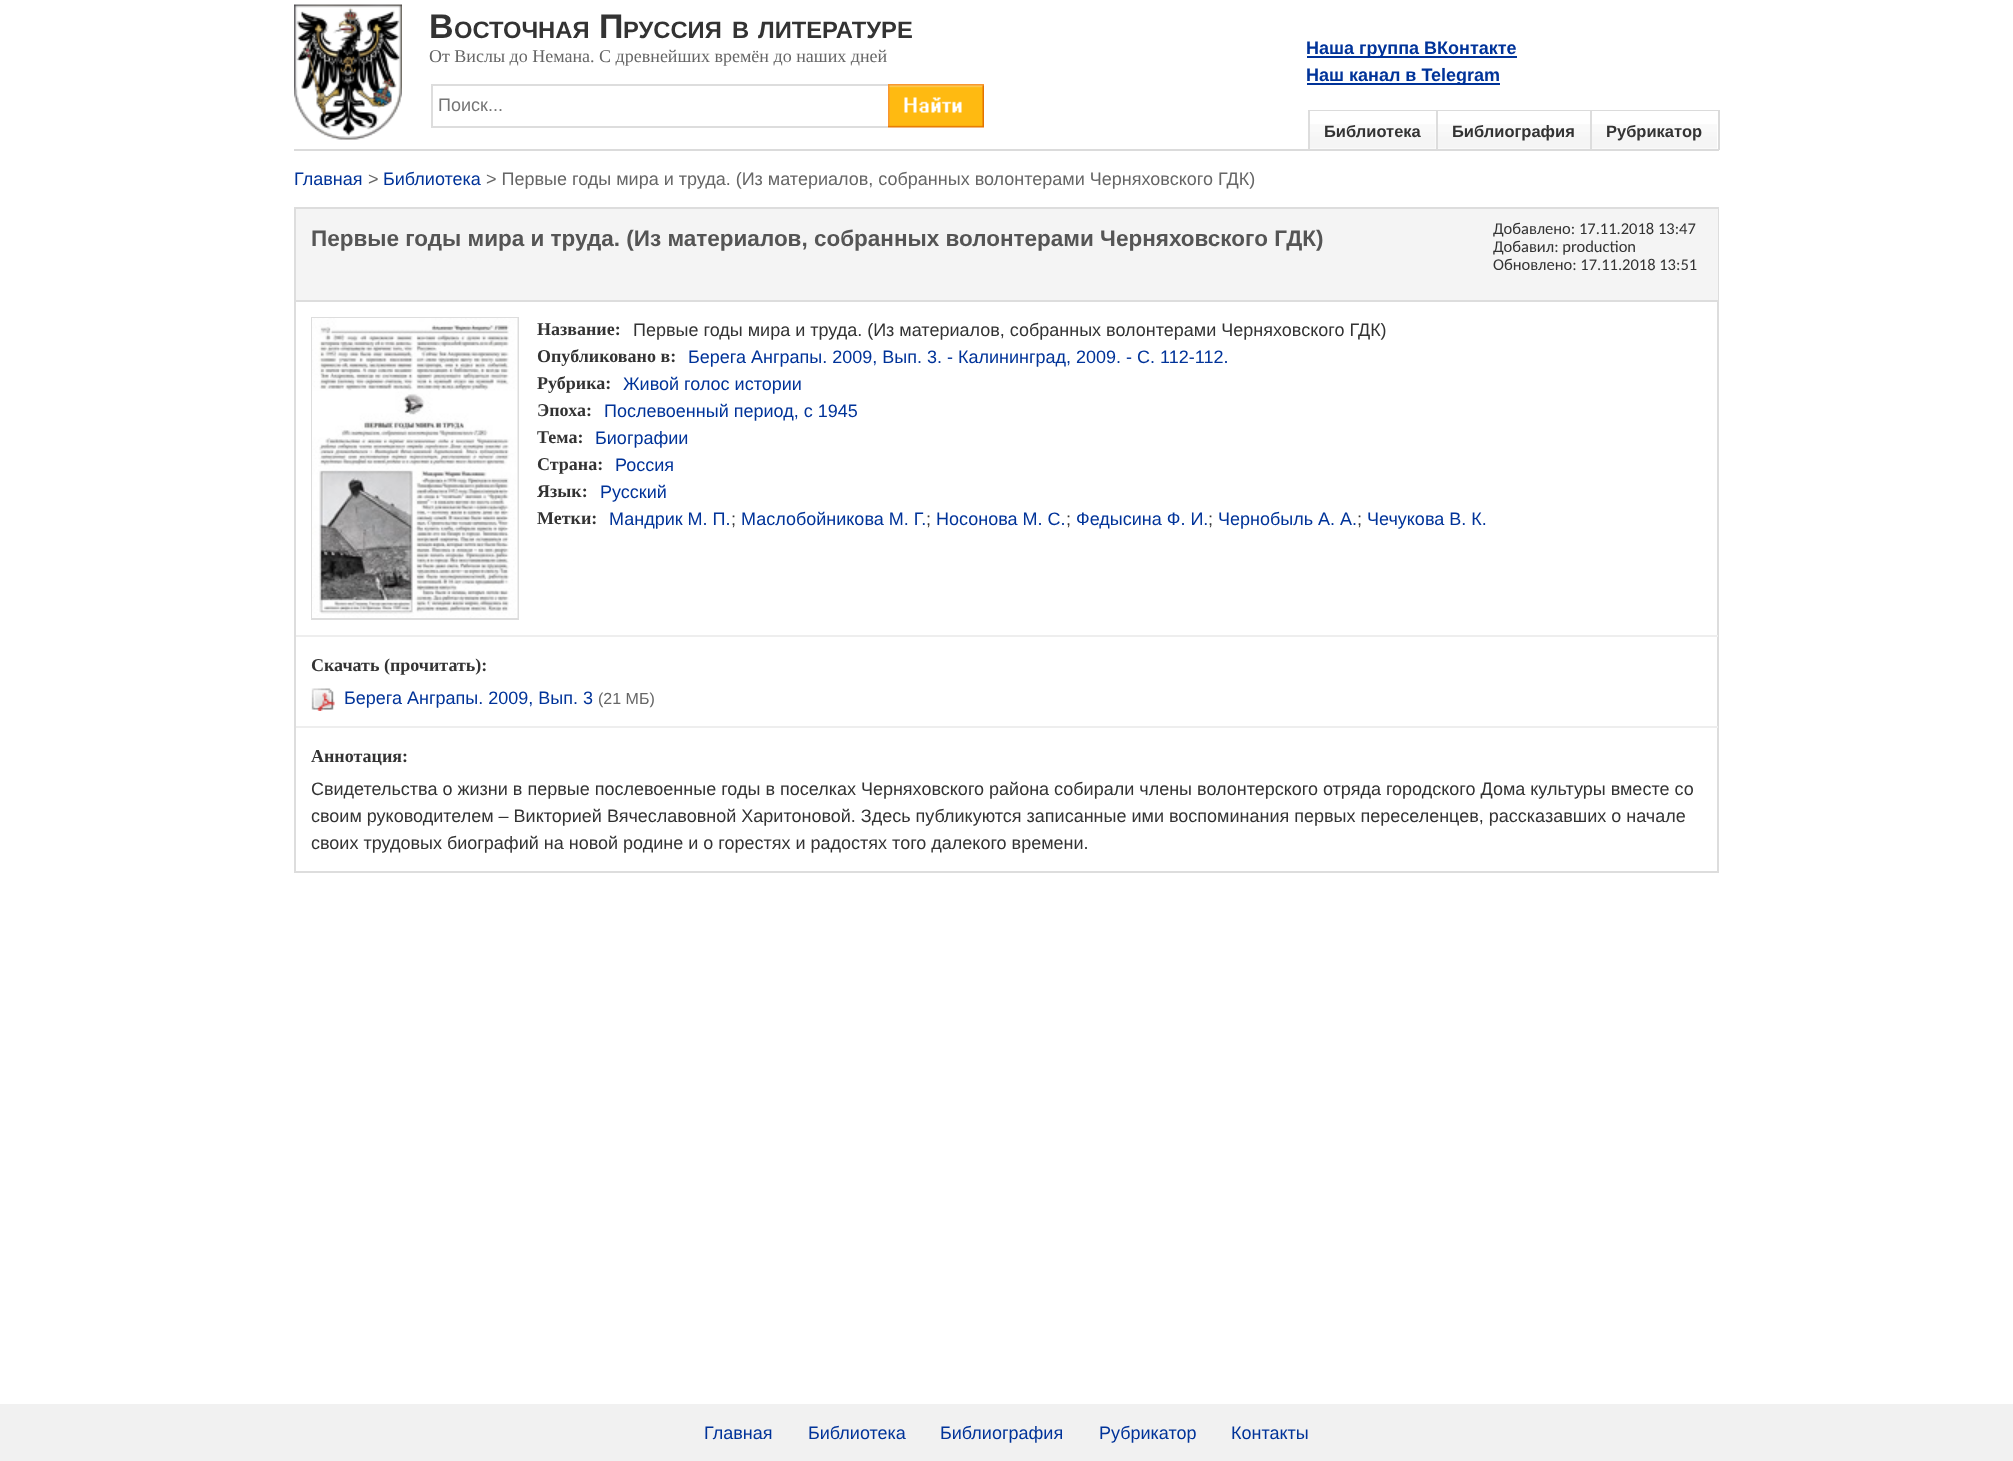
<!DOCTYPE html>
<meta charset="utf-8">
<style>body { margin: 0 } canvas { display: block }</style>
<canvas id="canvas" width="2013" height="1461"></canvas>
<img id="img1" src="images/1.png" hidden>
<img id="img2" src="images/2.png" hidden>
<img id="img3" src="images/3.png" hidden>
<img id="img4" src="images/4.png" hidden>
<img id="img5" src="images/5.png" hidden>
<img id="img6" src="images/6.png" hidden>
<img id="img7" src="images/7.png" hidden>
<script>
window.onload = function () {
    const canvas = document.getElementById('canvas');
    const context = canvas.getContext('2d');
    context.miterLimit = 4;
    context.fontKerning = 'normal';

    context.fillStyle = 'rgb(255, 255, 255)';
    context.fillRect(0, 0, 2013, 1461);
    context.fillStyle = 'rgb(219, 219, 219)';
    context.fillRect(294, 149, 1425, 2);
    context.drawImage(document.getElementById('img1'), 294, 4, 108, 136);
    context.fillStyle = 'rgb(221, 221, 221)';
    context.fillRect(431, 84, 457, 2);
    context.fillRect(431, 126, 457, 2);
    context.fillRect(431, 84, 2, 44);
    context.drawImage(document.getElementById('img2'), 888, 84, 96, 44);
    context.fillStyle = 'rgb(0, 51, 153)';
    context.fillRect(1307, 56, 210, 2);
    context.fillRect(1307, 83, 193, 2);
    context.fillStyle = 'rgb(219, 219, 219)';
    context.fillRect(1308, 110, 411, 1);
    context.fillRect(1718, 110, 2, 40);
    context.drawImage(document.getElementById('img3'), 1310, 124, 126, 25);
    context.fillStyle = 'rgb(221, 221, 221)';
    context.fillRect(1308, 111, 2, 38);
    context.drawImage(document.getElementById('img4'), 1438, 124, 152, 25);
    context.fillRect(1436, 111, 2, 38);
    context.drawImage(document.getElementById('img5'), 1592, 124, 125, 25);
    context.fillRect(1590, 111, 2, 38);
    context.strokeStyle = 'rgb(221, 221, 221)';
    context.lineWidth = 2;
    context.strokeRect(295, 208, 1423, 664);
    context.fillStyle = 'rgb(244, 244, 244)';
    context.fillRect(296, 209, 1422, 91);
    context.fillStyle = 'rgb(221, 221, 221)';
    context.fillRect(296, 300, 1422, 2);
    context.strokeRect(312, 318, 206, 301);
    context.drawImage(document.getElementById('img6'), 312, 318, 206, 300);
    context.fillStyle = 'rgb(238, 238, 238)';
    context.fillRect(296, 635, 1422, 2);
    context.drawImage(document.getElementById('img7'), 311, 688, 24, 23);
    context.fillRect(296, 726, 1422, 2);
    context.fillStyle = 'rgb(241, 241, 241)';
    context.fillRect(0, 1404, 2013, 57);
    context.font = 'bold 34px Liberation Sans';
    context.fillStyle = 'rgb(51, 51, 51)';
    context.fillText('В', 429, 38);
    context.font = 'bold 23.75px Liberation Sans';
    context.fillText('ОСТОЧНАЯ', 454, 38);
    context.font = 'bold 34px Liberation Sans';
    context.fillText('П', 599, 38);
    context.font = 'bold 23.75px Liberation Sans';
    context.fillText('РУССИЯ', 623, 38);
    context.fillText('В', 732, 38);
    context.fillText('ЛИТЕРАТУРЕ', 758, 38);
    context.font = '18px Liberation Serif';
    context.fillStyle = 'rgb(102, 102, 102)';
    context.fillText('От Вислы до Немана. С древнейших времён до наших дней', 429, 62);
    context.font = '18px Liberation Sans';
    context.fillStyle = 'rgb(117, 117, 117)';
    context.fillText('Поиск...', 438, 111);
    context.font = 'bold 18px Liberation Sans';
    context.fillStyle = 'rgb(0, 51, 153)';
    context.fillText('Наша группа ВКонтакте', 1306, 54);
    context.fillText('Наш канал в Telegram', 1306, 81);
    context.font = 'bold 16.5px Liberation Sans';
    context.fillStyle = 'rgb(51, 51, 51)';
    context.fillText('Библиотека', 1324, 137);
    context.fillText('Библиография', 1452, 137);
    context.fillText('Рубрикатор', 1606, 137);
    context.font = '18px Liberation Sans';
    context.fillStyle = 'rgb(0, 51, 153)';
    context.fillText('Главная', 294, 185);
    context.fillStyle = 'rgb(102, 102, 102)';
    context.fillText('>', 368, 185);
    context.fillStyle = 'rgb(0, 51, 153)';
    context.fillText('Библиотека', 383, 185);
    context.fillStyle = 'rgb(102, 102, 102)';
    context.fillText('> Первые годы мира и труда. (Из материалов, собранных волонтерами Черняховского ГДК)', 486, 185);
    context.font = 'bold 22.5px Liberation Sans';
    context.fillStyle = 'rgb(85, 85, 85)';
    context.fillText('Первые годы мира и труда. (Из материалов, собранных волонтерами Черняховского ГДК)', 311, 246);
    context.font = '16.5px Carlito';
    context.fillStyle = 'rgb(51, 51, 51)';
    context.fillText('Добавлено: 17.11.2018 13:47', 1493, 234);
    context.fillText('Добавил: production', 1493, 252);
    context.fillText('Обновлено: 17.11.2018 13:51', 1493, 270);
    context.font = 'bold 18px Liberation Serif';
    context.fillText('Название:', 537, 335);
    context.font = '18px Liberation Sans';
    context.fillText('Первые годы мира и труда. (Из материалов, собранных волонтерами Черняховского ГДК)', 633, 336);
    context.font = 'bold 18px Liberation Serif';
    context.fillText('Опубликовано в:', 537, 362);
    context.font = '18px Liberation Sans';
    context.fillStyle = 'rgb(0, 51, 153)';
    context.fillText('Берега Анграпы. 2009, Вып. 3. - Калининград, 2009. - С. 112-112.', 688, 363);
    context.font = 'bold 18px Liberation Serif';
    context.fillStyle = 'rgb(51, 51, 51)';
    context.fillText('Рубрика:', 537, 389);
    context.font = '18px Liberation Sans';
    context.fillStyle = 'rgb(0, 51, 153)';
    context.fillText('Живой голос истории', 623, 390);
    context.font = 'bold 18px Liberation Serif';
    context.fillStyle = 'rgb(51, 51, 51)';
    context.fillText('Эпоха:', 537, 416);
    context.font = '18px Liberation Sans';
    context.fillStyle = 'rgb(0, 51, 153)';
    context.fillText('Послевоенный период, с 1945', 604, 417);
    context.font = 'bold 18px Liberation Serif';
    context.fillStyle = 'rgb(51, 51, 51)';
    context.fillText('Тема:', 537, 443);
    context.font = '18px Liberation Sans';
    context.fillStyle = 'rgb(0, 51, 153)';
    context.fillText('Биографии', 595, 444);
    context.font = 'bold 18px Liberation Serif';
    context.fillStyle = 'rgb(51, 51, 51)';
    context.fillText('Страна:', 537, 470);
    context.font = '18px Liberation Sans';
    context.fillStyle = 'rgb(0, 51, 153)';
    context.fillText('Россия', 615, 471);
    context.font = 'bold 18px Liberation Serif';
    context.fillStyle = 'rgb(51, 51, 51)';
    context.fillText('Язык:', 537, 497);
    context.font = '18px Liberation Sans';
    context.fillStyle = 'rgb(0, 51, 153)';
    context.fillText('Русский', 600, 498);
    context.font = 'bold 18px Liberation Serif';
    context.fillStyle = 'rgb(51, 51, 51)';
    context.fillText('Метки:', 537, 524);
    context.font = '18px Liberation Sans';
    context.fillStyle = 'rgb(0, 51, 153)';
    context.fillText('Мандрик М. П.', 609, 525);
    context.fillStyle = 'rgb(51, 51, 51)';
    context.fillText(';', 731, 525);
    context.fillStyle = 'rgb(0, 51, 153)';
    context.fillText('Маслобойникова М. Г.', 741, 525);
    context.fillStyle = 'rgb(51, 51, 51)';
    context.fillText(';', 926, 525);
    context.fillStyle = 'rgb(0, 51, 153)';
    context.fillText('Носонова М. С.', 936, 525);
    context.fillStyle = 'rgb(51, 51, 51)';
    context.fillText(';', 1066, 525);
    context.fillStyle = 'rgb(0, 51, 153)';
    context.fillText('Федысина Ф. И.', 1076, 525);
    context.fillStyle = 'rgb(51, 51, 51)';
    context.fillText(';', 1208, 525);
    context.fillStyle = 'rgb(0, 51, 153)';
    context.fillText('Чернобыль А. А.', 1218, 525);
    context.fillStyle = 'rgb(51, 51, 51)';
    context.fillText(';', 1357, 525);
    context.fillStyle = 'rgb(0, 51, 153)';
    context.fillText('Чечукова В. К.', 1367, 525);
    context.font = 'bold 18px Liberation Serif';
    context.fillStyle = 'rgb(51, 51, 51)';
    context.fillText('Скачать (прочитать):', 311, 671);
    context.font = '18px Liberation Sans';
    context.fillStyle = 'rgb(0, 51, 153)';
    context.fillText('Берега Анграпы. 2009, Вып. 3', 344, 704);
    context.font = '16px Liberation Sans';
    context.fillStyle = 'rgb(102, 102, 102)';
    context.fillText('(21 МБ)', 598, 704);
    context.font = 'bold 18px Liberation Serif';
    context.fillStyle = 'rgb(51, 51, 51)';
    context.fillText('Аннотация:', 311, 762);
    context.font = '18px Liberation Sans';
    context.fillText('Свидетельства о жизни в первые послевоенные годы в поселках Черняховского района собирали члены волонтерского отряда городского Дома культуры вместе со', 311, 795);
    context.fillText('своим руководителем – Викторией Вячеславовной Харитоновой. Здесь публикуются записанные ими воспоминания первых переселенцев, рассказавших о начале', 311, 822);
    context.fillText('своих трудовых биографий на новой родине и о горестях и радостях того далекого времени.', 311, 849);
    context.fillStyle = 'rgb(0, 51, 153)';
    context.fillText('Главная', 704, 1439);
    context.fillText('Библиотека', 808, 1439);
    context.fillText('Библиография', 940, 1439);
    context.fillText('Рубрикатор', 1099, 1439);
    context.fillText('Контакты', 1231, 1439);
};
</script>
